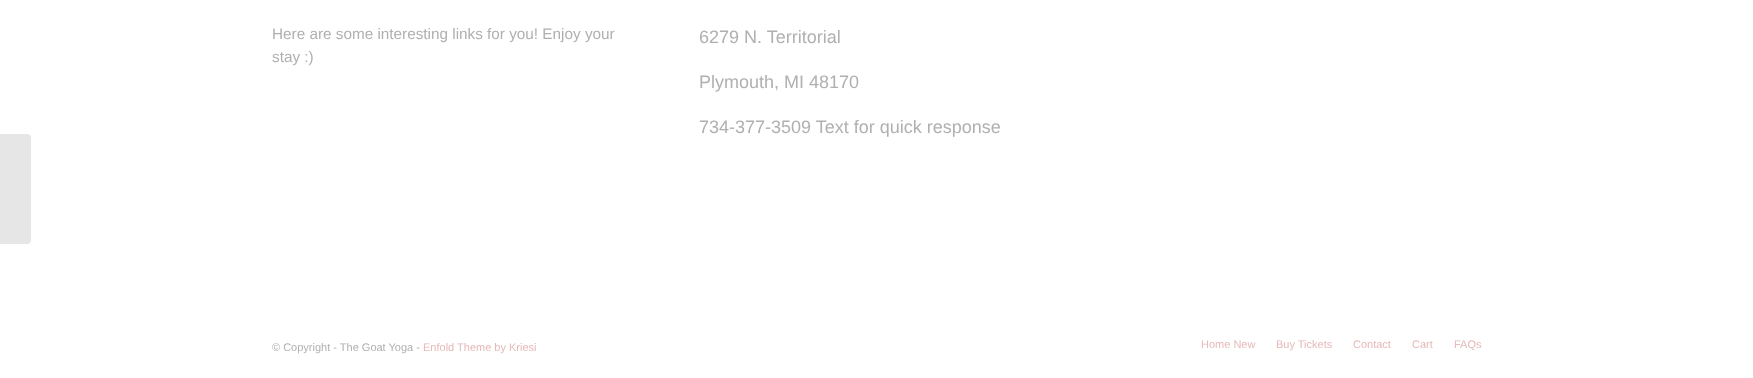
<!DOCTYPE html>
<meta charset="utf-8">
<style>body { margin: 0 } canvas { display: block }</style>
<canvas id="canvas" width="1753" height="378"></canvas>
<script>
window.onload = function () {
    const canvas = document.getElementById('canvas');
    const context = canvas.getContext('2d');
    context.miterLimit = 4;
    context.fontKerning = 'normal';

    context.fillStyle = 'rgb(255, 255, 255)';
    context.fillRect(0, 0, 1753, 378);
    context.fillStyle = 'rgb(230, 230, 230)';
    context.beginPath();
    context.roundRect(0, 134, 31, 110, [0, 4, 4, 0]);
    context.fill();
    context.font = '15.3px Liberation Sans';
    context.fillStyle = 'rgb(176, 176, 176)';
    context.fillText('Here are some interesting links for you! Enjoy your', 272, 39);
    context.fillText('stay :)', 272, 62);
    context.font = '18px Liberation Sans';
    context.fillText('6279 N. Territorial', 699, 43);
    context.fillText('Plymouth, MI 48170', 699, 88);
    context.fillText('734-377-3509 Text for quick response', 699, 133);
    context.font = '11px Liberation Sans';
    context.fillText('© Copyright - The Goat Yoga -', 272, 351);
    context.fillStyle = 'rgb(231, 184, 184)';
    context.fillText('Enfold Theme by Kriesi', 423, 351);
    context.fillText('Home New', 1201, 348);
    context.fillText('Buy Tickets', 1276, 348);
    context.fillText('Contact', 1353, 348);
    context.fillText('Cart', 1412, 348);
    context.fillText('FAQs', 1454, 348);
};
</script>
